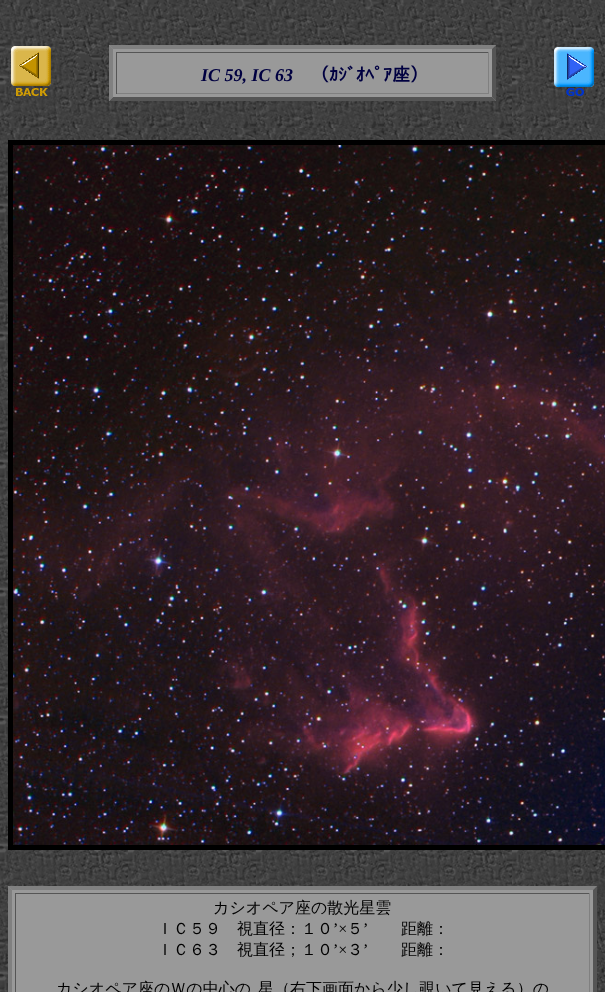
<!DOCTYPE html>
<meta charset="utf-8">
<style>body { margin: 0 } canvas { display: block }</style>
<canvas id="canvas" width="605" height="992"></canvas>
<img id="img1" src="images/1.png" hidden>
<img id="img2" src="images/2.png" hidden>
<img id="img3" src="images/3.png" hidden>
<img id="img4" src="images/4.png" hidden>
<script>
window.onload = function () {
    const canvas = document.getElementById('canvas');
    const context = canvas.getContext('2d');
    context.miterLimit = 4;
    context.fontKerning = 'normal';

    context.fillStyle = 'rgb(255, 255, 255)';
    context.fillRect(0, 0, 605, 992);
    context.drawImage(document.getElementById('img1'), 0, 0, 605, 992);
    context.drawImage(document.getElementById('img2'), 11, 46, 40, 50);
    context.fillStyle = 'rgb(153, 153, 153)';
    context.fillRect(109, 45, 387, 56);
    context.fillStyle = 'rgb(128, 128, 128)';
    context.beginPath();
    context.moveTo(109, 45);
    context.lineTo(496, 45);
    context.lineTo(492, 49);
    context.lineTo(113, 49);
    context.closePath();
    context.fill();
    context.fillStyle = 'rgb(85, 85, 85)';
    context.beginPath();
    context.moveTo(496, 45);
    context.lineTo(496, 101);
    context.lineTo(492, 97);
    context.lineTo(492, 49);
    context.closePath();
    context.fill();
    context.beginPath();
    context.moveTo(496, 101);
    context.lineTo(109, 101);
    context.lineTo(113, 97);
    context.lineTo(492, 97);
    context.closePath();
    context.fill();
    context.fillStyle = 'rgb(128, 128, 128)';
    context.beginPath();
    context.moveTo(109, 101);
    context.lineTo(109, 45);
    context.lineTo(113, 49);
    context.lineTo(113, 97);
    context.closePath();
    context.fill();
    context.fillStyle = 'rgb(85, 85, 85)';
    context.fillRect(116, 52, 373, 1);
    context.fillStyle = 'rgb(128, 128, 128)';
    context.fillRect(488, 52, 1, 42);
    context.fillRect(116, 93, 373, 1);
    context.fillStyle = 'rgb(85, 85, 85)';
    context.fillRect(116, 52, 1, 42);
    context.drawImage(document.getElementById('img3'), 554, 47, 40, 49);
    context.strokeStyle = 'rgb(0, 0, 0)';
    context.lineWidth = 5;
    context.strokeRect(10.5, 142.5, 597, 705);
    context.drawImage(document.getElementById('img4'), 13, 145, 592, 700);
    context.fillStyle = 'rgb(153, 153, 153)';
    context.fillRect(8, 886, 589, 106);
    context.fillStyle = 'rgb(128, 128, 128)';
    context.beginPath();
    context.moveTo(8, 886);
    context.lineTo(597, 886);
    context.lineTo(593, 890);
    context.lineTo(12, 890);
    context.closePath();
    context.fill();
    context.fillStyle = 'rgb(85, 85, 85)';
    context.beginPath();
    context.moveTo(597, 886);
    context.lineTo(597, 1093);
    context.lineTo(593, 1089);
    context.lineTo(593, 890);
    context.closePath();
    context.fill();
    context.fillStyle = 'rgb(128, 128, 128)';
    context.beginPath();
    context.moveTo(8, 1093);
    context.lineTo(8, 886);
    context.lineTo(12, 890);
    context.lineTo(12, 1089);
    context.closePath();
    context.fill();
    context.fillStyle = 'rgb(85, 85, 85)';
    context.fillRect(15, 893, 575, 1);
    context.fillStyle = 'rgb(128, 128, 128)';
    context.fillRect(589, 893, 1, 99);
    context.fillStyle = 'rgb(85, 85, 85)';
    context.fillRect(15, 893, 1, 99);
    context.font = 'italic bold 18px Liberation Serif';
    context.fillStyle = 'rgb(0, 0, 64)';
    context.fillText('IC 59, IC 63', 201, 81);
    context.font = 'bold 18px IPAGothic';
    context.fillText('（ｶｼﾞｵﾍﾟｱ座）', 311, 81);
    context.font = '500 16px WenQuanYi Zen Hei';
    context.fillStyle = 'rgb(0, 0, 0)';
    context.fillText('カシオペア座の散光星雲', 213, 913);
    context.fillText('ＩＣ５９　視直径：１０', 157, 934);
    context.font = '16px Liberation Serif';
    context.fillText('’×', 333, 934);
    context.font = '500 16px WenQuanYi Zen Hei';
    context.fillText('５', 347, 934);
    context.font = '16px Liberation Serif';
    context.fillText('’', 363, 934);
    context.font = '500 16px WenQuanYi Zen Hei';
    context.fillText('距離：', 401, 934);
    context.fillText('ＩＣ６３　視直径；１０', 157, 955);
    context.font = '16px Liberation Serif';
    context.fillText('’×', 333, 955);
    context.font = '500 16px WenQuanYi Zen Hei';
    context.fillText('３', 347, 955);
    context.font = '16px Liberation Serif';
    context.fillText('’', 363, 955);
    context.font = '500 16px WenQuanYi Zen Hei';
    context.fillText('距離：', 401, 955);
    context.fillText('カシオペア座のＷの中心の', 56, 994);
    context.fillText('星（右下画面から少し覗いて見える）の', 258, 994);
};
</script>
